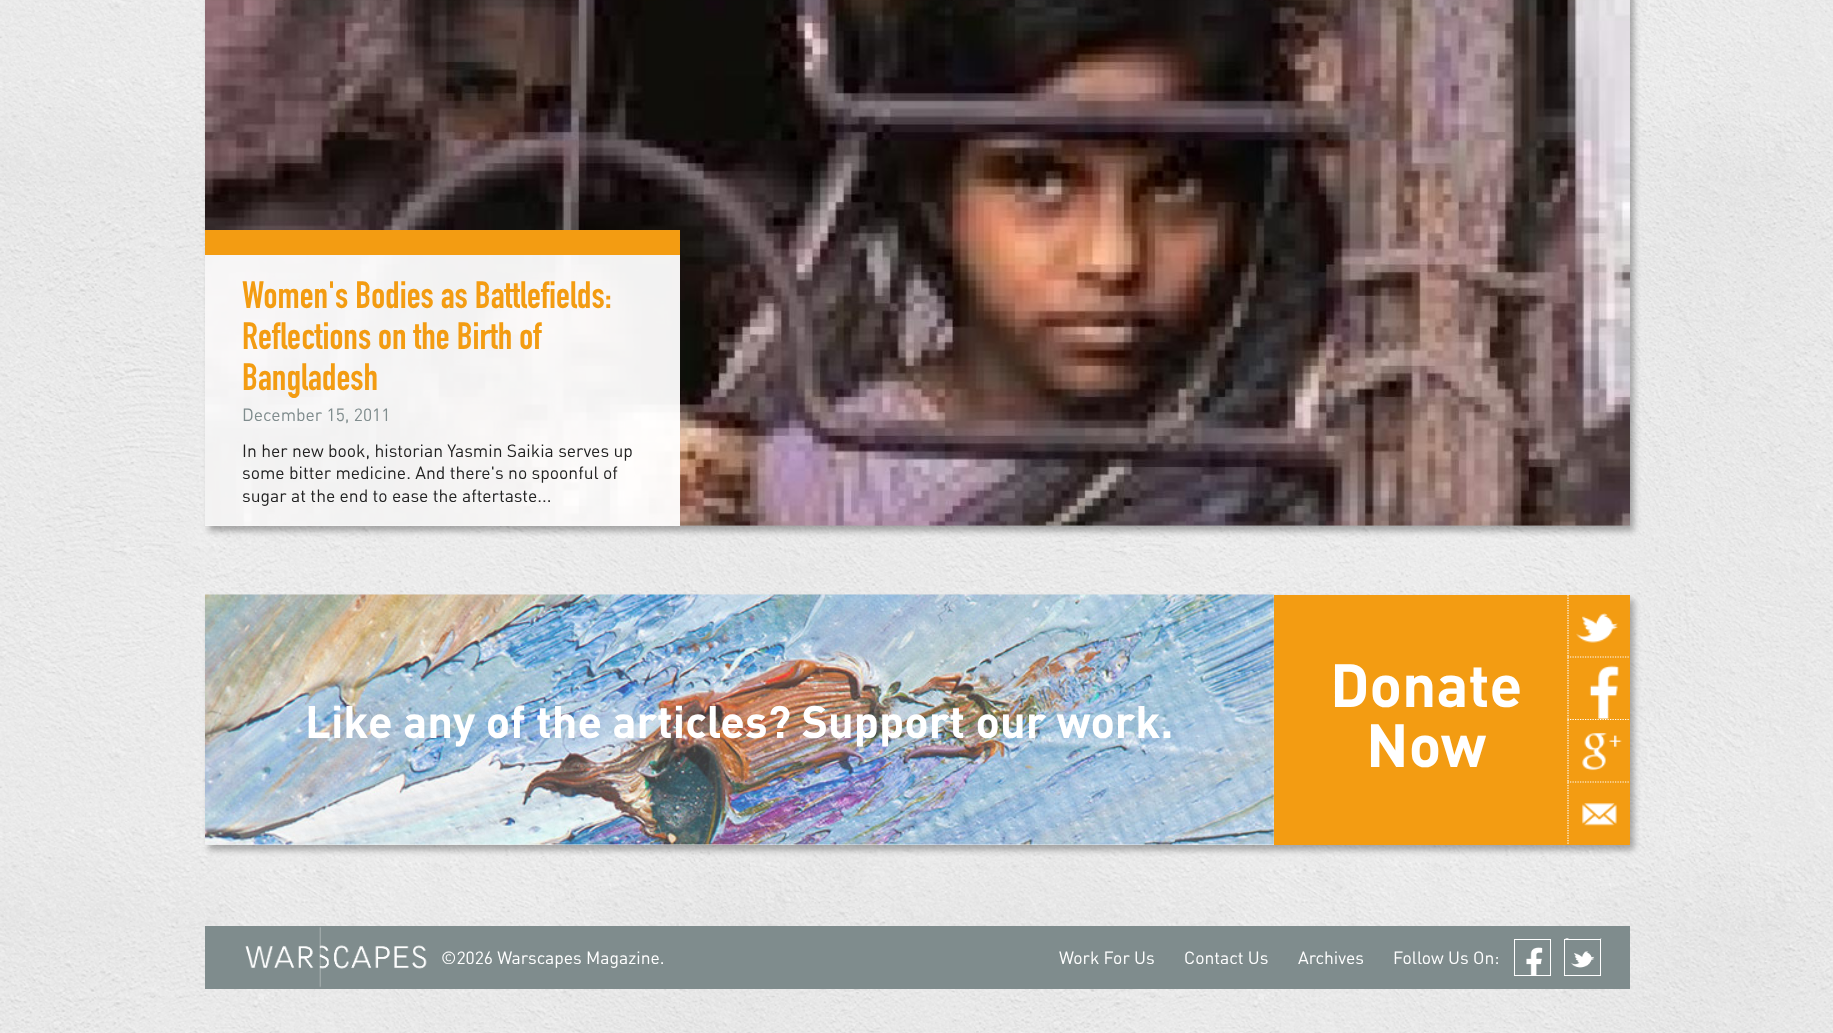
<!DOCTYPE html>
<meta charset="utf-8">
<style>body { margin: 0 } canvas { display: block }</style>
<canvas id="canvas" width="1833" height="1033"></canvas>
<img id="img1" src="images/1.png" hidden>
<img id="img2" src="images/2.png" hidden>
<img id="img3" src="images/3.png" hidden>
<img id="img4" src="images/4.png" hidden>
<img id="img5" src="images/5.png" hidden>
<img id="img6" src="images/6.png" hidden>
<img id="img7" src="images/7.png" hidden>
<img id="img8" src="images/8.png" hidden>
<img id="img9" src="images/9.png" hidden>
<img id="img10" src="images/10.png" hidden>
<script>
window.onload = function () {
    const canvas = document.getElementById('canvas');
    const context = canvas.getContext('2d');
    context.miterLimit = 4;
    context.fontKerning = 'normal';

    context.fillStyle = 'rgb(255, 255, 255)';
    context.fillRect(0, 0, 1833, 1033);
    context.drawImage(document.getElementById('img1'), 0, 0, 1833, 1033);
    context.fillStyle = 'rgba(0, 0, 0, 0.3)';
    context.filter = 'blur(3px)';
    context.beginPath();
    context.rect(209, -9, 1425, 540);
    context.fill();
    context.filter = 'none';
    context.drawImage(document.getElementById('img2'), 205, 0, 1425, 526);
    context.fillStyle = 'rgba(255, 255, 255, 0.95)';
    context.fillRect(205, 255, 475, 271);
    context.fillStyle = 'rgb(243, 156, 18)';
    context.fillRect(205, 230, 475, 25);
    context.save();
    context.beginPath();
    context.moveTo(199, 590);
    context.lineTo(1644, 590);
    context.lineTo(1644, 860);
    context.lineTo(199, 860);
    context.closePath();
    context.moveTo(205, 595);
    context.lineTo(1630, 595);
    context.lineTo(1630, 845);
    context.lineTo(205, 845);
    context.closePath();
    context.clip('evenodd');
    context.fillStyle = 'rgba(0, 0, 0, 0.3)';
    context.filter = 'blur(3px)';
    context.beginPath();
    context.rect(209, 600, 1425, 250);
    context.fill();
    context.filter = 'none';
    context.restore();
    context.drawImage(document.getElementById('img3'), 205, 594, 1069, 251);
    context.fillRect(1274, 595, 356, 250);
    context.drawImage(document.getElementById('img4'), 1576, 613, 42, 30);
    context.beginPath();
    context.moveTo(1567.5, 657);
    context.lineTo(1630, 657);
    context.moveTo(1568, 595);
    context.lineTo(1568, 657.5);
    context.strokeStyle = 'rgb(255, 255, 255)';
    context.lineWidth = 1.2;
    context.setLineDash([1.25, 1.25]);
    context.stroke();
    context.drawImage(document.getElementById('img5'), 1589, 665, 30, 54);
    context.beginPath();
    context.moveTo(1567.5, 719.5);
    context.lineTo(1630, 719.5);
    context.stroke();
    context.beginPath();
    context.moveTo(1568, 657.5);
    context.lineTo(1568, 720);
    context.stroke();
    context.drawImage(document.getElementById('img6'), 1582, 733, 40, 38);
    context.beginPath();
    context.moveTo(1567.5, 782);
    context.lineTo(1630, 782);
    context.moveTo(1568, 720);
    context.lineTo(1568, 782.5);
    context.stroke();
    context.drawImage(document.getElementById('img7'), 1582, 803, 35, 23);
    context.beginPath();
    context.moveTo(1568, 782.5);
    context.lineTo(1568, 845);
    context.stroke();
    context.fillStyle = 'rgb(127, 140, 141)';
    context.fillRect(205, 926, 1425, 63);
    context.drawImage(document.getElementById('img8'), 245, 926, 182, 62);
    context.drawImage(document.getElementById('img9'), 1526, 947, 17, 28);
    context.lineWidth = 1;
    context.setLineDash([]);
    context.strokeRect(1514.5, 939.5, 36, 36);
    context.drawImage(document.getElementById('img10'), 1565, 938, 37, 30);
    context.strokeRect(1564.5, 939.5, 36, 36);
    context.font = '37.5px "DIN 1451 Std"';
    context.fillStyle = 'rgb(243, 156, 18)';
    context.fillText('Women\'s Bodies as Battlefields:', 242, 308);
    context.fillText('Reflections on the Birth of', 242, 349);
    context.fillText('Bangladesh', 242, 390);
    context.font = '17.5px DIN';
    context.fillStyle = 'rgb(127, 140, 141)';
    context.fillText('December 15, 2011', 242, 421);
    context.fillStyle = 'rgb(34, 34, 34)';
    context.fillText('In her new book, historian Yasmin Saikia serves up', 242, 457);
    context.fillText('some bitter medicine. And there\'s no spoonful of', 242, 479);
    context.fillText('sugar at the end to ease the aftertaste...', 242, 502);
    context.font = 'bold 45px DIN';
    context.fillStyle = 'rgb(255, 255, 255)';
    context.fillText('Like any of the articles? Support our work.', 305, 738);
    context.font = 'bold 60px DIN';
    context.fillText('Donate', 1330, 707);
    context.fillText('Now', 1366, 767);
    context.font = '17.5px DIN';
    context.fillText('©2026 Warscapes Magazine.', 441, 964);
    context.fillText('Work For Us', 1059, 964);
    context.fillText('Contact Us', 1184, 964);
    context.fillText('Archives', 1298, 964);
    context.fillText('Follow Us On:', 1393, 964);
};
</script>
